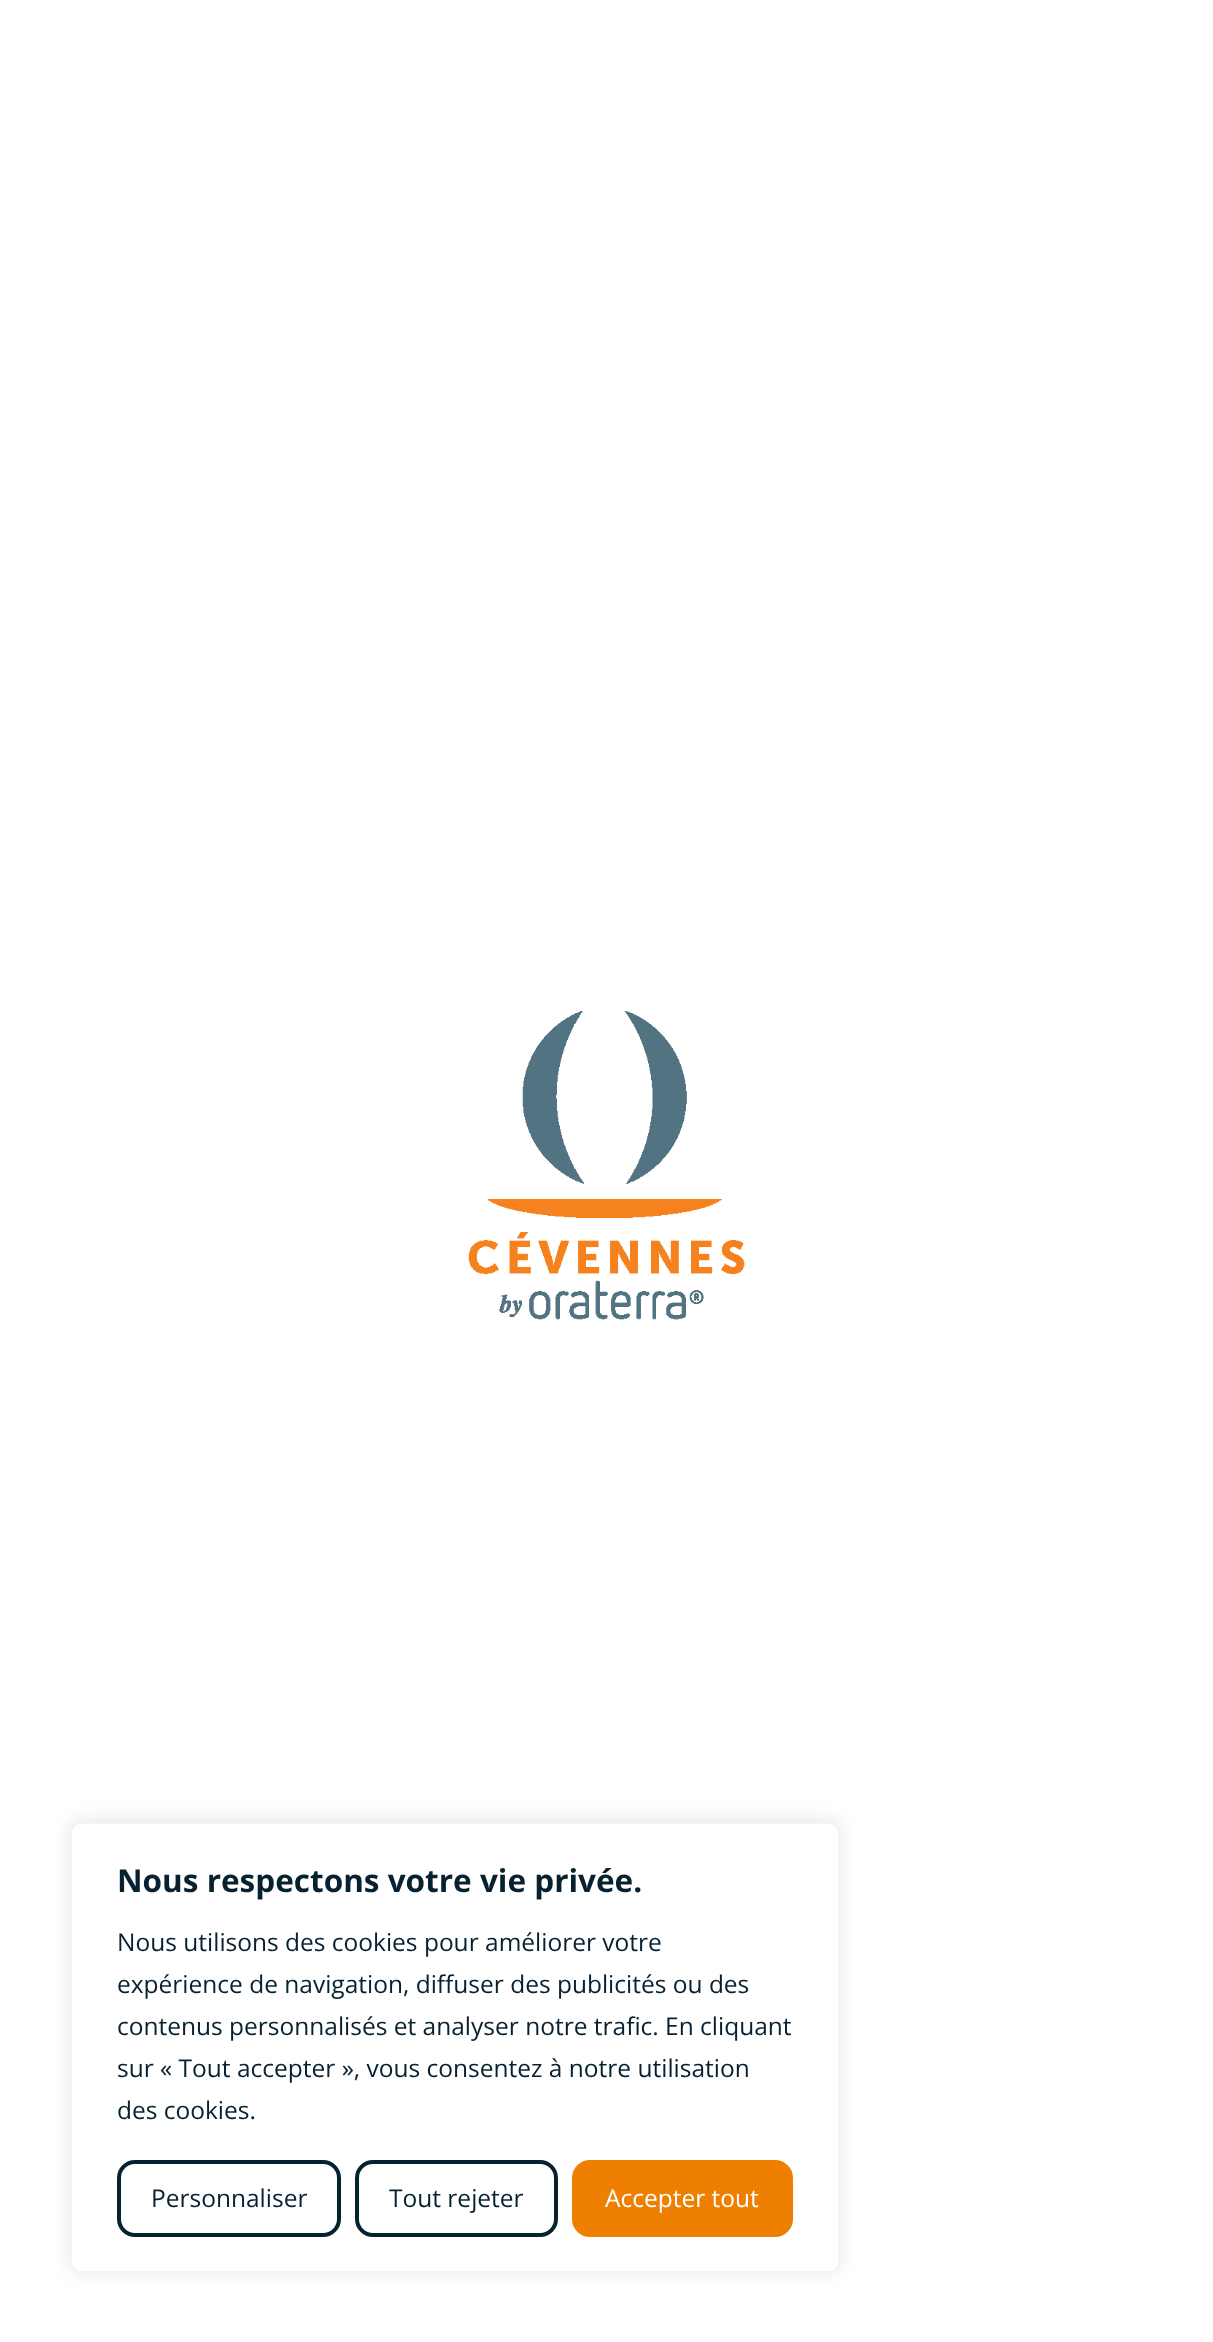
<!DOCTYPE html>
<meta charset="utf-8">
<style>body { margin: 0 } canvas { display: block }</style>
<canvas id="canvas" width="1213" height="2342"></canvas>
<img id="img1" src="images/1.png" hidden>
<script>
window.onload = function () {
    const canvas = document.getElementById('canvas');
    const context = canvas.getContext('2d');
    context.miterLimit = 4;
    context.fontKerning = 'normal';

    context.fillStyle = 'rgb(255, 255, 255)';
    context.fillRect(0, 0, 1213, 2342);
    context.drawImage(document.getElementById('img1'), 468, 1011, 277, 309);
    context.fillStyle = 'rgba(172, 171, 171, 0.3)';
    context.filter = 'blur(9px)';
    context.beginPath();
    context.roundRect(70, 1820, 770, 452, 11);
    context.fill();
    context.filter = 'none';
    context.fillStyle = 'rgb(255, 255, 255)';
    context.beginPath();
    context.roundRect(71, 1823, 768, 449, 10);
    context.fill();
    context.strokeStyle = 'rgb(244, 244, 244)';
    context.lineWidth = 2;
    context.stroke();
    context.beginPath();
    context.roundRect(119, 2162, 220, 73, 16);
    context.strokeStyle = 'rgb(7, 33, 48)';
    context.lineWidth = 4;
    context.stroke();
    context.beginPath();
    context.roundRect(357, 2162, 199, 73, 16);
    context.stroke();
    context.fillStyle = 'rgb(238, 127, 0)';
    context.beginPath();
    context.roundRect(574, 2162, 217, 73, 16);
    context.fill();
    context.strokeStyle = 'rgb(238, 127, 0)';
    context.stroke();
    context.font = 'bold 31.5px Open Sans';
    context.fillStyle = 'rgb(7, 33, 48)';
    context.fillText('Nous respectons votre vie privée.', 117, 1892);
    context.font = '24.5px Open Sans';
    context.fillText('Nous utilisons des cookies pour améliorer votre', 117, 1951);
    context.fillText('expérience de navigation, diffuser des publicités ou des', 117, 1993);
    context.fillText('contenus personnalisés et analyser notre trafic. En cliquant', 117, 2035);
    context.fillText('sur « Tout accepter », vous consentez à notre utilisation', 117, 2077);
    context.fillText('des cookies.', 117, 2119);
    context.fillText('Personnaliser', 151, 2207);
    context.fillText('Tout rejeter', 389, 2207);
    context.fillStyle = 'rgb(255, 255, 255)';
    context.fillText('Accepter tout', 605, 2207);
};
</script>
